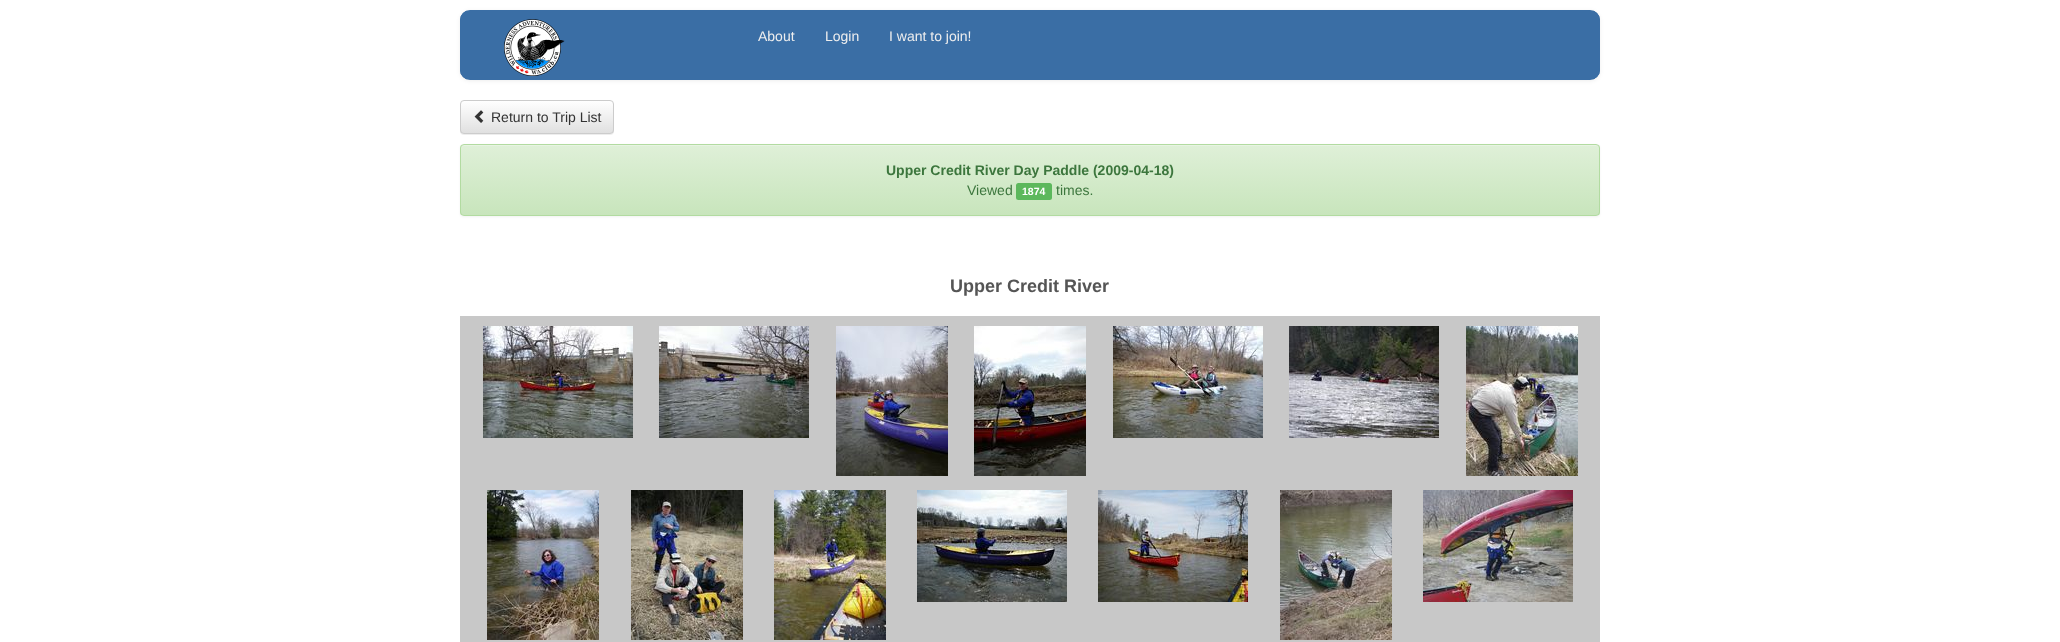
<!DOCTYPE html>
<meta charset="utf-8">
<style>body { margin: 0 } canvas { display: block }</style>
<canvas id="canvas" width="2060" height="642"></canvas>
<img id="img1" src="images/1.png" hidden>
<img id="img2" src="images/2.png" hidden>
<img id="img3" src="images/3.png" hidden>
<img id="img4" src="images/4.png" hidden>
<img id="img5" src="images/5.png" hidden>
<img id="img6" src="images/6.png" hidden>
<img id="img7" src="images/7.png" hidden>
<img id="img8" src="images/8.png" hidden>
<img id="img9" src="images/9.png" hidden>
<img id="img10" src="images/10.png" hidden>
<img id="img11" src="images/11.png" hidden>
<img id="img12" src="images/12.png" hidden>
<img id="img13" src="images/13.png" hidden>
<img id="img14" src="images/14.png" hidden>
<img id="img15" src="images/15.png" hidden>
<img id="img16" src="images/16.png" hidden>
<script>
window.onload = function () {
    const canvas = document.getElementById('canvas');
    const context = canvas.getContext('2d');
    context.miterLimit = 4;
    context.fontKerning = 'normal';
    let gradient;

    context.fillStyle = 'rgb(255, 255, 255)';
    context.fillRect(0, 0, 2060, 642);
    context.fillStyle = 'rgba(0, 0, 0, 0.07)';
    context.filter = 'blur(2px)';
    context.beginPath();
    context.roundRect(460, 11, 1140, 70, 10);
    context.fill();
    context.filter = 'none';
    context.save();
    context.beginPath();
    context.roundRect(460, 10, 1140, 70, 10);
    context.clip();
    context.fillStyle = 'rgb(58, 110, 165)';
    context.fillRect(460, 11, 1140, 68);
    context.restore();
    context.beginPath();
    context.roundRect(460.5, 10.5, 1139, 69, 9.5);
    context.strokeStyle = 'rgb(58, 110, 165)';
    context.stroke();
    context.drawImage(document.getElementById('img1'), 504, 19, 61, 57);
    context.filter = 'blur(0.5px)';
    context.beginPath();
    context.roundRect(460, 101, 154, 34, 4);
    context.fill();
    context.filter = 'none';
    context.save();
    context.beginPath();
    context.roundRect(460, 100, 154, 34, 4);
    context.clip();
    gradient = context.createLinearGradient(537, 101, 537, 133);
    gradient.addColorStop(0, 'rgb(255, 255, 255)');
    gradient.addColorStop(1, 'rgb(224, 224, 224)');
    context.fillStyle = gradient;
    context.fillRect(460, 101, 154, 32);
    context.restore();
    context.beginPath();
    context.roundRect(460.5, 100.5, 153, 33, 3.5);
    context.strokeStyle = 'rgb(204, 204, 204)';
    context.stroke();
    context.drawImage(document.getElementById('img2'), 474, 110, 10, 13);
    context.fillStyle = 'rgba(0, 0, 0, 0.05)';
    context.filter = 'blur(1px)';
    context.beginPath();
    context.roundRect(460, 145, 1140, 72, 4);
    context.fill();
    context.filter = 'none';
    context.save();
    context.beginPath();
    context.roundRect(460, 144, 1140, 72, 4);
    context.clip();
    gradient = context.createLinearGradient(1030, 145, 1030, 215);
    gradient.addColorStop(0, 'rgb(223, 240, 216)');
    gradient.addColorStop(1, 'rgb(200, 229, 188)');
    context.fillStyle = gradient;
    context.fillRect(460, 145, 1140, 70);
    context.restore();
    context.fillStyle = 'rgb(231, 244, 226)';
    context.beginPath();
    context.moveTo(464, 146);
    context.lineTo(1596, 146);
    context.bezierCurveTo(1598, 146, 1599, 147, 1599, 149);
    context.lineTo(1599, 148);
    context.bezierCurveTo(1599, 146, 1598, 145, 1596, 145);
    context.lineTo(464, 145);
    context.bezierCurveTo(462, 145, 461, 146, 461, 148);
    context.lineTo(461, 149);
    context.bezierCurveTo(461, 147, 462, 146, 464, 146);
    context.closePath();
    context.fill();
    context.beginPath();
    context.roundRect(460.5, 144.5, 1139, 71, 3.5);
    context.strokeStyle = 'rgb(178, 219, 161)';
    context.stroke();
    context.fillStyle = 'rgb(92, 184, 92)';
    context.beginPath();
    context.roundRect(1016, 183, 36, 17, 2.5);
    context.fill();
    context.fillStyle = 'rgb(200, 200, 200)';
    context.fillRect(460, 316, 1140, 326);
    context.drawImage(document.getElementById('img3'), 483, 326, 150, 112);
    context.drawImage(document.getElementById('img4'), 659, 326, 150, 112);
    context.drawImage(document.getElementById('img5'), 836, 326, 112, 150);
    context.drawImage(document.getElementById('img6'), 974, 326, 112, 150);
    context.drawImage(document.getElementById('img7'), 1113, 326, 150, 112);
    context.drawImage(document.getElementById('img8'), 1289, 326, 150, 112);
    context.drawImage(document.getElementById('img9'), 1466, 326, 112, 150);
    context.drawImage(document.getElementById('img10'), 487, 490, 112, 150);
    context.drawImage(document.getElementById('img11'), 631, 490, 112, 150);
    context.drawImage(document.getElementById('img12'), 774, 490, 112, 150);
    context.drawImage(document.getElementById('img13'), 917, 490, 150, 112);
    context.drawImage(document.getElementById('img14'), 1098, 490, 150, 112);
    context.drawImage(document.getElementById('img15'), 1280, 490, 112, 150);
    context.drawImage(document.getElementById('img16'), 1423, 490, 150, 112);
    context.font = '14px Liberation Sans';
    context.fillStyle = 'rgb(238, 238, 238)';
    context.fillText('About', 758, 41);
    context.fillText('Login', 825, 41);
    context.fillText('I want to join!', 889, 41);
    context.fillStyle = 'rgb(51, 51, 51)';
    context.fillText('Return to Trip List', 491, 122);
    context.font = 'bold 14px Liberation Sans';
    context.fillStyle = 'rgb(60, 118, 61)';
    context.fillText('Upper Credit River Day Paddle (2009-04-18)', 886, 175);
    context.font = '14px Liberation Sans';
    context.fillText('Viewed', 967, 195);
    context.font = 'bold 10.5px Liberation Sans';
    context.fillStyle = 'rgb(255, 255, 255)';
    context.fillText('1874', 1022, 195);
    context.font = '14px Liberation Sans';
    context.fillStyle = 'rgb(60, 118, 61)';
    context.fillText('times.', 1056, 195);
    context.font = 'bold 18px Liberation Sans';
    context.fillStyle = 'rgb(85, 85, 85)';
    context.fillText('Upper Credit River', 950, 292);
};
</script>
